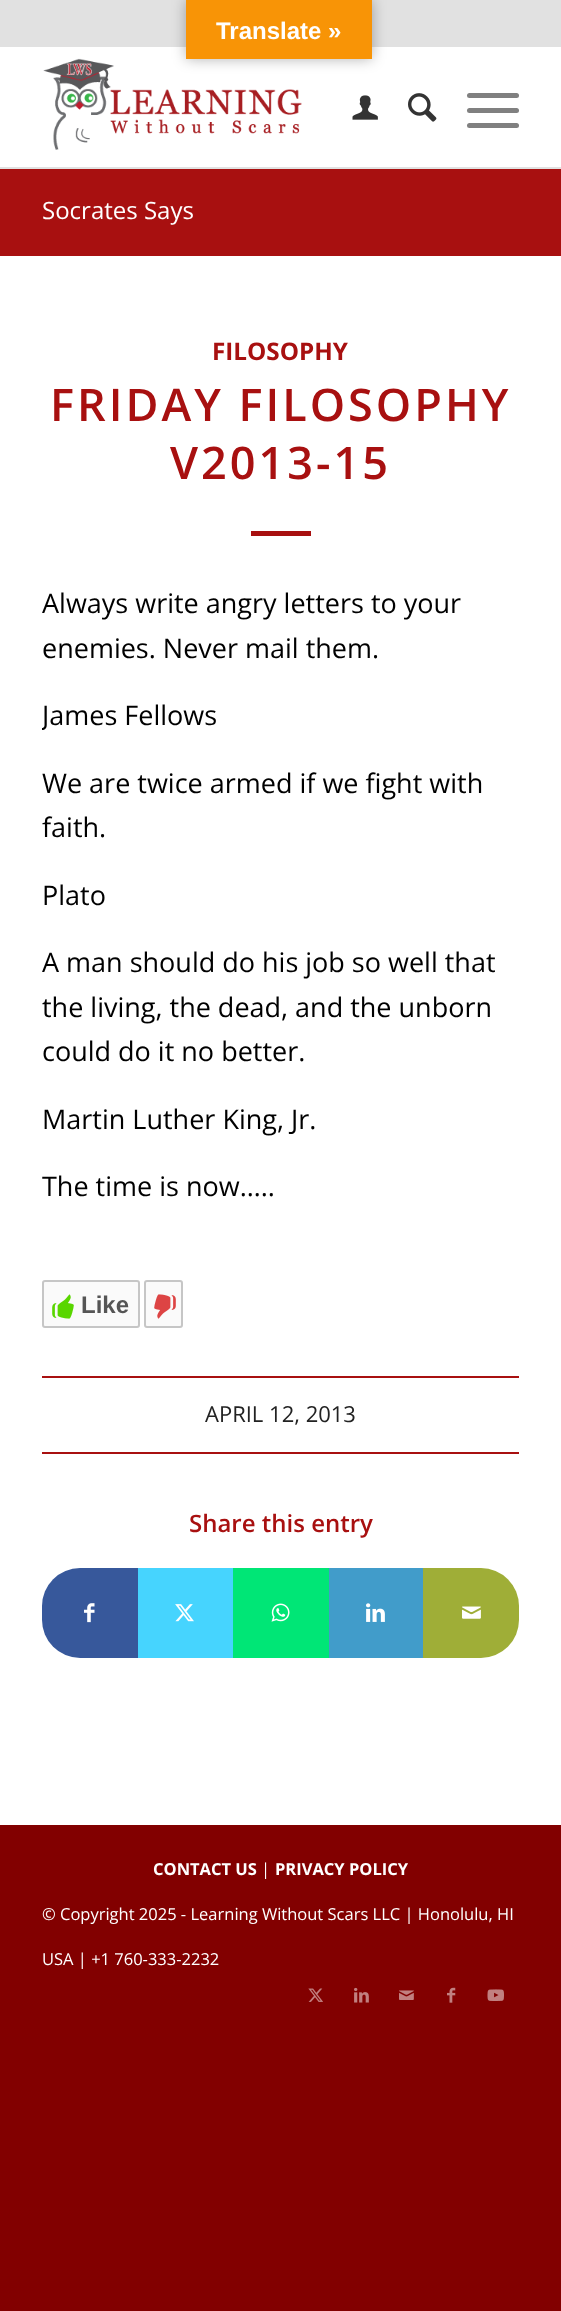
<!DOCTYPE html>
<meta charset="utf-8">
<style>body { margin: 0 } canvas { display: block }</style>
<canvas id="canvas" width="561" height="2311"></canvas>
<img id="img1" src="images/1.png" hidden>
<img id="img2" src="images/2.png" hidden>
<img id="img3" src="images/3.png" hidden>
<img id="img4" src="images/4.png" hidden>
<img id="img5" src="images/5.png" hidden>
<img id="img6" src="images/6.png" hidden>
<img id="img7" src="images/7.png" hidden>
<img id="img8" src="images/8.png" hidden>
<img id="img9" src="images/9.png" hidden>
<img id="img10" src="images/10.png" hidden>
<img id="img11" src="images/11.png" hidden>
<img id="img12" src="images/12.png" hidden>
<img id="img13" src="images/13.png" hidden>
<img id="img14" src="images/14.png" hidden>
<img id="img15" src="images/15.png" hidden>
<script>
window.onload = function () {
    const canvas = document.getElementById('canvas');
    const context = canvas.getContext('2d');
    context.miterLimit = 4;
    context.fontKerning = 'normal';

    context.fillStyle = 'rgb(130, 0, 0)';
    context.fillRect(0, 0, 561, 2311);
    context.fillStyle = 'rgb(255, 255, 255)';
    context.fillRect(0, 47, 561, 1778);
    context.fillStyle = 'rgb(225, 225, 225)';
    context.fillRect(0, 0, 561, 47);
    context.drawImage(document.getElementById('img1'), 43, 58, 259, 92);
    context.fillStyle = 'rgba(0, 0, 0, 0.3)';
    context.filter = 'blur(7px)';
    context.beginPath();
    context.rect(186, 0, 186, 59);
    context.fill();
    context.filter = 'none';
    context.fillStyle = 'rgb(248, 148, 6)';
    context.fillRect(186, 0, 186, 59);
    context.fillStyle = 'rgb(225, 225, 225)';
    context.fillRect(0, 167, 561, 2);
    context.drawImage(document.getElementById('img2'), 352, 95, 26, 25);
    context.drawImage(document.getElementById('img3'), 408, 93, 29, 29);
    context.fillStyle = 'rgb(128, 128, 128)';
    context.beginPath();
    context.roundRect(467, 108, 52, 5, 2.5);
    context.fill();
    context.beginPath();
    context.roundRect(467, 93, 52, 5, 2.5);
    context.fill();
    context.beginPath();
    context.roundRect(467, 123, 52, 5, 2.5);
    context.fill();
    context.fillStyle = 'rgb(168, 16, 16)';
    context.fillRect(0, 169, 561, 87);
    context.fillRect(251, 531, 60, 5);
    context.fillStyle = 'rgb(250, 250, 250)';
    context.beginPath();
    context.roundRect(43, 1281, 96, 46, 2);
    context.fill();
    context.strokeStyle = 'rgb(198, 198, 198)';
    context.lineWidth = 2;
    context.stroke();
    context.drawImage(document.getElementById('img4'), 52, 1294, 22, 25);
    context.beginPath();
    context.roundRect(145, 1281, 37, 46, 2);
    context.fill();
    context.stroke();
    context.drawImage(document.getElementById('img5'), 154, 1294, 22, 25);
    context.fillStyle = 'rgb(168, 16, 16)';
    context.fillRect(42, 1376, 477, 2);
    context.fillRect(42, 1452, 477, 2);
    context.fillStyle = 'rgb(55, 88, 155)';
    context.beginPath();
    context.roundRect(42, 1568, 96, 90, [38, 0, 0, 38]);
    context.fill();
    context.drawImage(document.getElementById('img6'), 84, 1603, 11, 20);
    context.fillStyle = 'rgb(70, 212, 254)';
    context.fillRect(138, 1568, 95, 90);
    context.drawImage(document.getElementById('img7'), 175, 1604, 19, 18);
    context.fillStyle = 'rgb(0, 230, 118)';
    context.fillRect(233, 1568, 96, 90);
    context.drawImage(document.getElementById('img8'), 271, 1603, 19, 19);
    context.fillStyle = 'rgb(65, 156, 202)';
    context.fillRect(329, 1568, 94, 90);
    context.drawImage(document.getElementById('img9'), 366, 1603, 19, 19);
    context.fillStyle = 'rgb(159, 174, 55)';
    context.beginPath();
    context.roundRect(423, 1568, 96, 90, [0, 38, 38, 0]);
    context.fill();
    context.drawImage(document.getElementById('img10'), 462, 1606, 19, 13);
    context.drawImage(document.getElementById('img11'), 308, 1988, 15, 14);
    context.drawImage(document.getElementById('img12'), 354, 1987, 15, 16);
    context.drawImage(document.getElementById('img13'), 399, 1990, 15, 10);
    context.drawImage(document.getElementById('img14'), 447, 1987, 9, 16);
    context.drawImage(document.getElementById('img15'), 487, 1989, 17, 12);
    context.font = 'bold 24px Liberation Sans';
    context.fillStyle = 'rgb(255, 255, 255)';
    context.fillText('Translate »', 216, 39);
    context.font = '24px Open Sans';
    context.fillText('Socrates Says', 42, 219);
    context.font = 'bold 24.25px Open Sans';
    context.fillStyle = 'rgb(168, 16, 16)';
    context.fillText('FILOSOPHY', 212, 360);
    context.letterSpacing = '3px';
    context.font = '600 45px Open Sans';
    context.fillText('FRIDAY FILOSOPHY', 50, 421);
    context.fillText('V2013-15', 170, 479);
    context.letterSpacing = '0px';
    context.font = '27px Open Sans';
    context.fillStyle = 'rgb(0, 0, 0)';
    context.fillText('Always write angry letters to your', 42, 613);
    context.fillText('enemies. Never mail them.', 42, 658);
    context.save();
    context.beginPath();
    context.rect(42, 330, 477, 1388);
    context.clip();
    context.fillText('James Fellows', 42, 725);
    context.restore();
    context.fillText('We are twice armed if we fight with', 42, 793);
    context.fillText('faith.', 42, 837);
    context.fillText('Plato', 42, 905);
    context.fillText('A man should do his job so well that', 42, 972);
    context.fillText('the living, the dead, and the unborn', 42, 1017);
    context.fillText('could do it no better.', 42, 1061);
    context.fillText('Martin Luther King, Jr.', 42, 1129);
    context.fillText('The time is now…..', 42, 1196);
    context.font = 'bold 24px Liberation Sans';
    context.fillStyle = 'rgb(85, 85, 85)';
    context.fillText('Like', 81, 1313);
    context.font = '22px Open Sans';
    context.fillStyle = 'rgb(34, 34, 34)';
    context.fillText('APRIL 12, 2013', 205, 1422);
    context.font = '600 24px Open Sans';
    context.fillStyle = 'rgb(168, 16, 16)';
    context.fillText('Share this entry', 189, 1532);
    context.font = 'bold 16.5px Open Sans';
    context.fillStyle = 'rgb(255, 255, 255)';
    context.fillText('CONTACT US', 153, 1875);
    context.font = '16.5px Open Sans';
    context.fillText('|', 261, 1875);
    context.font = 'bold 16.5px Open Sans';
    context.fillText('PRIVACY POLICY', 275, 1875);
    context.font = '16.5px Open Sans';
    context.fillText('© Copyright 2025 - Learning Without Scars LLC | Honolulu, HI', 42, 1920);
    context.fillText('USA | +1 760-333-2232', 42, 1965);
};
</script>
